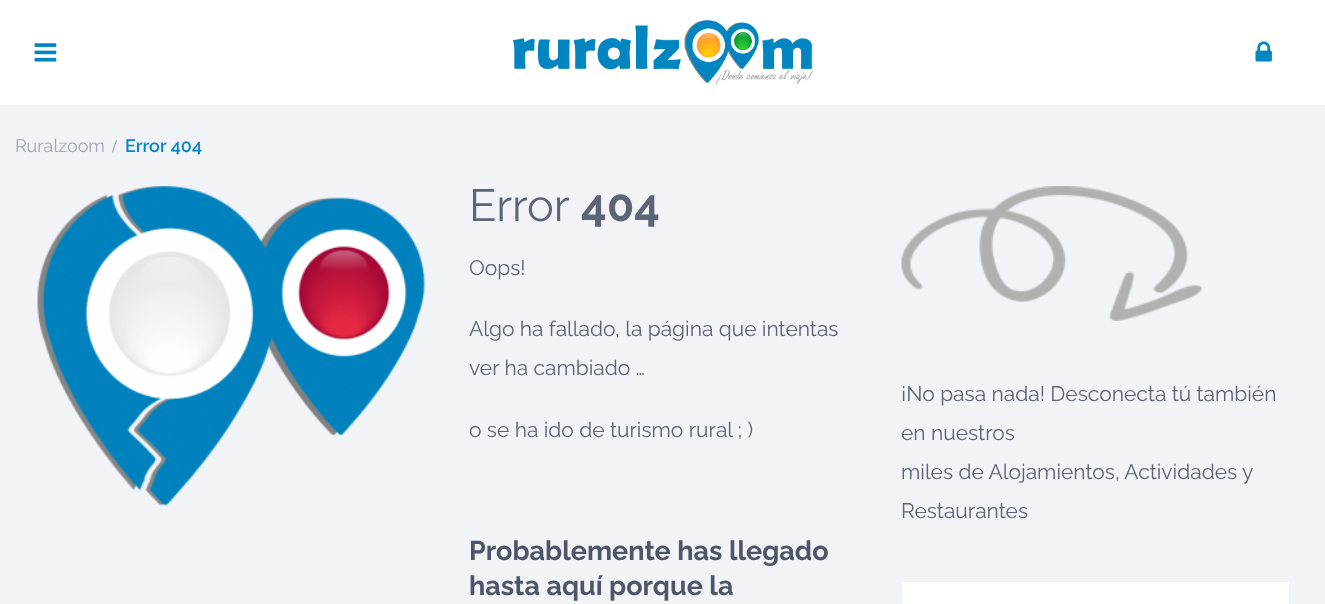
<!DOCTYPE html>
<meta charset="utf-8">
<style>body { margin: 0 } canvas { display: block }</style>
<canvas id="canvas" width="1325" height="604"></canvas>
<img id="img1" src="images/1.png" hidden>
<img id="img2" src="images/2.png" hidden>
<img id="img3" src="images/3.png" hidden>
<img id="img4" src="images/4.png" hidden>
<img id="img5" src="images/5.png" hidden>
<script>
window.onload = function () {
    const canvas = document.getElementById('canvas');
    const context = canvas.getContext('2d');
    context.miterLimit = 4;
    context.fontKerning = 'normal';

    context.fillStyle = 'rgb(241, 243, 247)';
    context.fillRect(0, 0, 1325, 604);
    context.fillStyle = 'rgb(255, 255, 255)';
    context.fillRect(0, 0, 1325, 105);
    context.drawImage(document.getElementById('img1'), 34, 43, 23, 19);
    context.drawImage(document.getElementById('img2'), 513, 20, 300, 65);
    context.drawImage(document.getElementById('img3'), 1255, 41, 17, 21);
    context.drawImage(document.getElementById('img4'), 37, 186, 388, 320);
    context.drawImage(document.getElementById('img5'), 901, 186, 301, 135);
    context.fillRect(902, 582, 387, 22);
    context.font = '100 18px Raleway';
    context.fillStyle = 'rgb(161, 167, 180)';
    context.fillText('Ruralzoom', 15, 152);
    context.font = 'bold 18px Liberation Serif';
    context.fillText('/', 112, 152);
    context.font = '100 18px "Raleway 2"';
    context.fillStyle = 'rgb(0, 134, 194)';
    context.fillText('Error 404', 125, 152);
    context.font = '100 45px Raleway';
    context.fillStyle = 'rgb(93, 100, 117)';
    context.fillText('Error', 469, 221);
    context.font = '100 45px "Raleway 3"';
    context.fillText('404', 581, 221);
    context.font = '100 21px Raleway';
    context.fillText('Oops!', 469, 275);
    context.fillText('Algo ha fallado, la página que intentas', 469, 336);
    context.fillText('ver ha cambiado …', 469, 375);
    context.fillText('o se ha ido de turismo rural ; )', 469, 437);
    context.font = '100 27px "Raleway 3"';
    context.fillStyle = 'rgb(77, 85, 103)';
    context.fillText('Probablemente has llegado', 469, 560);
    context.fillText('hasta aquí porque la', 469, 595);
    context.font = '100 21px Raleway';
    context.fillStyle = 'rgb(93, 100, 117)';
    context.fillText('¡No pasa nada! Desconecta tú también', 901, 401);
    context.fillText('en nuestros', 901, 440);
    context.fillText('miles de Alojamientos, Actividades y', 901, 479);
    context.fillText('Restaurantes', 901, 518);
};
</script>
